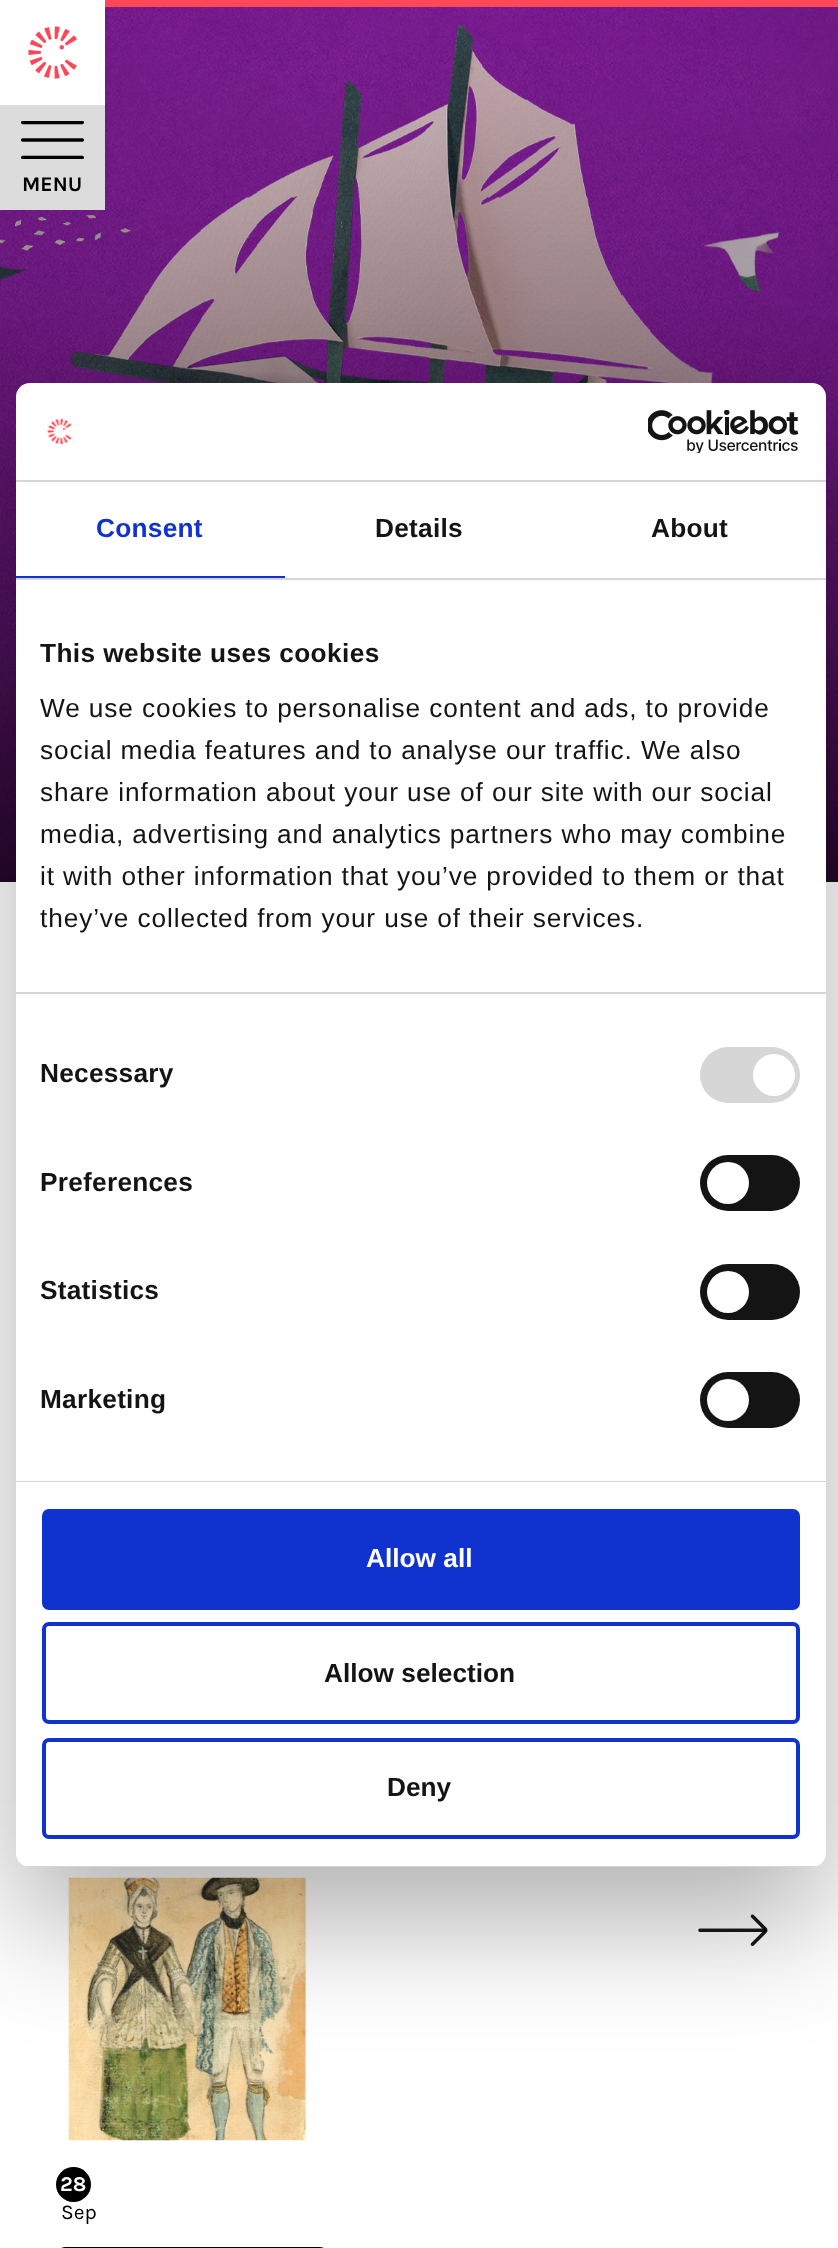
<!DOCTYPE html>
<meta charset="utf-8">
<style>body { margin: 0 } canvas { display: block }</style>
<canvas id="canvas" width="838" height="2248"></canvas>
<img id="img1" src="images/3.png" hidden>
<img id="img2" src="images/1.png" hidden>
<img id="img3" src="images/2.png" hidden>
<img id="img4" src="images/4.png" hidden>
<img id="img5" src="images/5.png" hidden>
<img id="img6" src="images/6.png" hidden>
<img id="img7" src="images/7.png" hidden>
<script>
window.onload = function () {
    const canvas = document.getElementById('canvas');
    const context = canvas.getContext('2d');
    context.miterLimit = 4;
    context.fontKerning = 'normal';

    context.fillStyle = 'rgb(255, 255, 255)';
    context.fillRect(0, 0, 838, 2248);
    context.drawImage(document.getElementById('img1'), 0, 7, 838, 875);
    context.fillStyle = 'rgb(220, 220, 220)';
    context.fillRect(0, 105, 105, 105);
    context.fillStyle = 'rgb(255, 255, 255)';
    context.fillRect(0, 7, 105, 98);
    context.drawImage(document.getElementById('img2'), 28, 26, 49, 53);
    context.drawImage(document.getElementById('img3'), 21, 121, 63, 38);
    context.fillStyle = 'rgb(255, 71, 87)';
    context.fillRect(105, 0, 733, 7);
    context.drawImage(document.getElementById('img4'), 67, 1877, 241, 264);
    context.drawImage(document.getElementById('img5'), 698, 1914, 70, 32);
    context.fillStyle = 'rgb(0, 0, 0)';
    context.beginPath();
    context.arc(73.5, 2184.5, 17.5, 0, 2 * Math.PI);
    context.fill();
    context.beginPath();
    context.roundRect(56, 2247, 273, 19, 17.5);
    context.fill();
    context.fillStyle = 'rgba(0, 0, 0, 0.3)';
    context.filter = 'blur(59.5px)';
    context.beginPath();
    context.roundRect(16, 439, 810, 1484, 14);
    context.fill();
    context.filter = 'none';
    context.fillStyle = 'rgb(255, 255, 255)';
    context.beginPath();
    context.roundRect(16, 383, 810, 1484, 14);
    context.fill();
    context.fillStyle = 'rgb(214, 214, 214)';
    context.fillRect(16, 480, 810, 2);
    context.drawImage(document.getElementById('img6'), 47, 418, 25, 27);
    context.drawImage(document.getElementById('img7'), 648, 410, 151, 43);
    context.fillRect(16, 578, 810, 2);
    context.fillStyle = 'rgb(16, 50, 207)';
    context.fillRect(16, 576, 269, 2);
    context.fillStyle = 'rgb(214, 214, 214)';
    context.fillRect(16, 992, 810, 2);
    context.fillRect(16, 1481, 810, 1);
    context.beginPath();
    context.roundRect(700, 1047, 100, 56, 28);
    context.fill();
    context.fillStyle = 'rgb(255, 255, 255)';
    context.beginPath();
    context.arc(774, 1075, 21, 0, 2 * Math.PI);
    context.fill();
    context.fillStyle = 'rgb(20, 20, 20)';
    context.beginPath();
    context.roundRect(700, 1155, 100, 56, 28);
    context.fill();
    context.fillStyle = 'rgb(255, 255, 255)';
    context.beginPath();
    context.arc(728, 1183, 21, 0, 2 * Math.PI);
    context.fill();
    context.fillStyle = 'rgb(20, 20, 20)';
    context.beginPath();
    context.roundRect(700, 1264, 100, 56, 28);
    context.fill();
    context.fillStyle = 'rgb(255, 255, 255)';
    context.beginPath();
    context.arc(728, 1292, 21, 0, 2 * Math.PI);
    context.fill();
    context.fillStyle = 'rgb(20, 20, 20)';
    context.beginPath();
    context.roundRect(700, 1372, 100, 56, 28);
    context.fill();
    context.fillStyle = 'rgb(255, 255, 255)';
    context.beginPath();
    context.arc(728, 1400, 21, 0, 2 * Math.PI);
    context.fill();
    context.save();
    context.beginPath();
    context.roundRect(16, 383, 810, 1484, 14);
    context.clip();
    context.fillStyle = 'rgb(214, 214, 214)';
    context.fillRect(25, 1866, 792, 1);
    context.restore();
    context.fillStyle = 'rgb(16, 50, 207)';
    context.beginPath();
    context.roundRect(44, 1511, 754, 97, 5);
    context.fill();
    context.strokeStyle = 'rgb(16, 50, 207)';
    context.lineWidth = 4;
    context.stroke();
    context.beginPath();
    context.roundRect(44, 1624, 754, 98, 5);
    context.stroke();
    context.beginPath();
    context.roundRect(44, 1740, 754, 97, 5);
    context.stroke();
    context.font = 'bold 21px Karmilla';
    context.fillStyle = 'rgb(0, 0, 0)';
    context.fillText('MENU', 22, 191);
    context.fillStyle = 'rgb(255, 255, 255)';
    context.fillText('28', 60, 2191);
    context.font = '21px Karmilla';
    context.fillStyle = 'rgb(0, 0, 0)';
    context.fillText('Sep', 61, 2219);
    context.letterSpacing = '0.25px';
    context.font = 'bold 26.25px Liberation Sans';
    context.fillStyle = 'rgb(16, 50, 207)';
    context.fillText('Consent', 96, 537);
    context.fillStyle = 'rgb(20, 20, 20)';
    context.fillText('Details', 375, 537);
    context.fillText('About', 651, 537);
    context.letterSpacing = '0.4px';
    context.fillText('This website uses cookies', 40, 662);
    context.letterSpacing = '0.88px';
    context.font = '26.25px Liberation Sans';
    context.fillText('We use cookies to personalise content and ads, to provide', 40, 717);
    context.fillText('social media features and to analyse our traffic. We also', 40, 759);
    context.fillText('share information about your use of our site with our social', 40, 801);
    context.fillText('media, advertising and analytics partners who may combine', 40, 843);
    context.fillText('it with other information that you’ve provided to them or that', 40, 885);
    context.fillText('they’ve collected from your use of their services.', 40, 927);
    context.letterSpacing = '0.25px';
    context.font = 'bold 26.25px Liberation Sans';
    context.fillText('Necessary', 40, 1082);
    context.fillText('Preferences', 40, 1191);
    context.fillText('Statistics', 40, 1299);
    context.fillText('Marketing', 40, 1408);
    context.letterSpacing = '0px';
    context.fillStyle = 'rgb(255, 255, 255)';
    context.fillText('Allow all', 366, 1567);
    context.fillStyle = 'rgb(20, 20, 20)';
    context.fillText('Allow selection', 324, 1682);
    context.fillText('Deny', 387, 1796);
};
</script>
